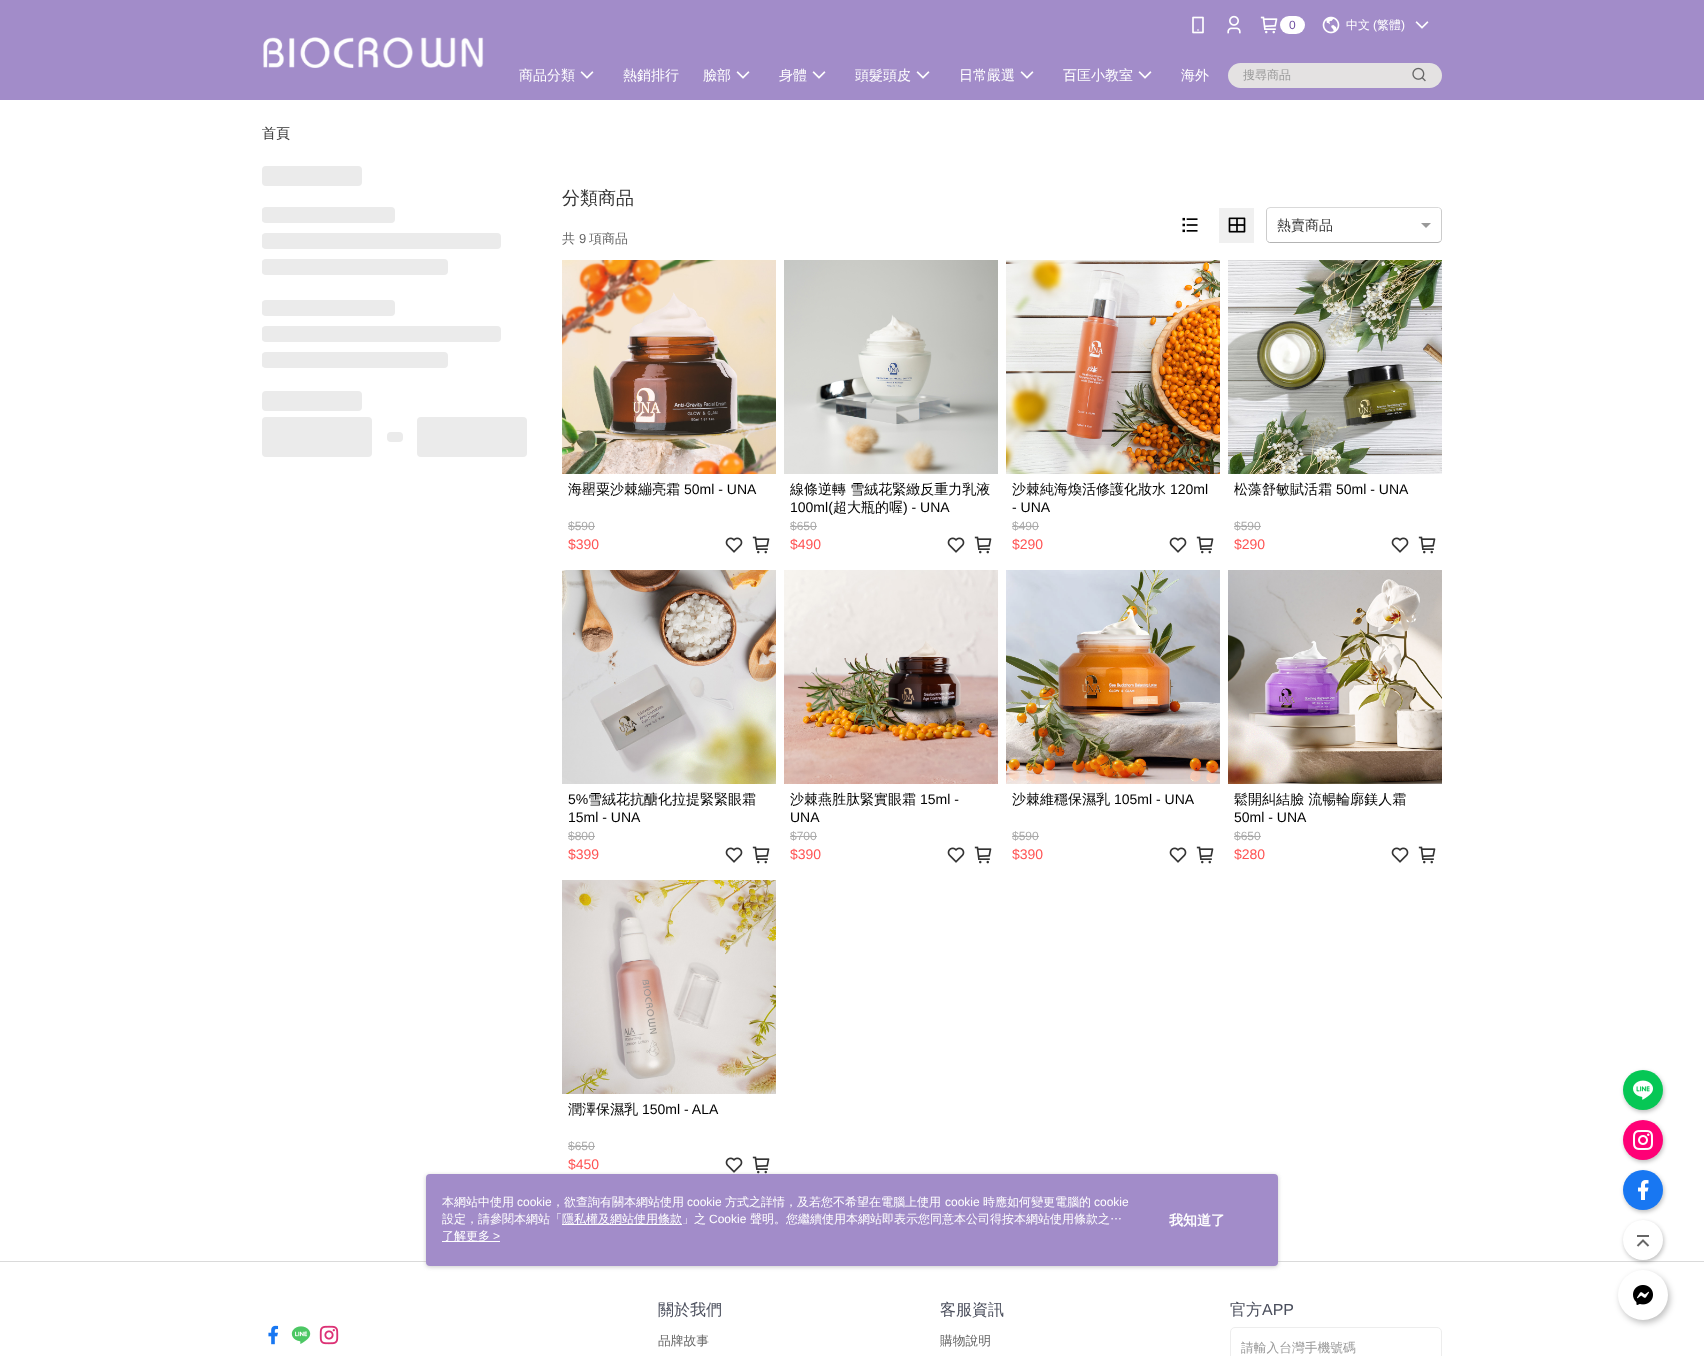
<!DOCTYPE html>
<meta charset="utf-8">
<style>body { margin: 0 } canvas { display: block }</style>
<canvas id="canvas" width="1704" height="1356"></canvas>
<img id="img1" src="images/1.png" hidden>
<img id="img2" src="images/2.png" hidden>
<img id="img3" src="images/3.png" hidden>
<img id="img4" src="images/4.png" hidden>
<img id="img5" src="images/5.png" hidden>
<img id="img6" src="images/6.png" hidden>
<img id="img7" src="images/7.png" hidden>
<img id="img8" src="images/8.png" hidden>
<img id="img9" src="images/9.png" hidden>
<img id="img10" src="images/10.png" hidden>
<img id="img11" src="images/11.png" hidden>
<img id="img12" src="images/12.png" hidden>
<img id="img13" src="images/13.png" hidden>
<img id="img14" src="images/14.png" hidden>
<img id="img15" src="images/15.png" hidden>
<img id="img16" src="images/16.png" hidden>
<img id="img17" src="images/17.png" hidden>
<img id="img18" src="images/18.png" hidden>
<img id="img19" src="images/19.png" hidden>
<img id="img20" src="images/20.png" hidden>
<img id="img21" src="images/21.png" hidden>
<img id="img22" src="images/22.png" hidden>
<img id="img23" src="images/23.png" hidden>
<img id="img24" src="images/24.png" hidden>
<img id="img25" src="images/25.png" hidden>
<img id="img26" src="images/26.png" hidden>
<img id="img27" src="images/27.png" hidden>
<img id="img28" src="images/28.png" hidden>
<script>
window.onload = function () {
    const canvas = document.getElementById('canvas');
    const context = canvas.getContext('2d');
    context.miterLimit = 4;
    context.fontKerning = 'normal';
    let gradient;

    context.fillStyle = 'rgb(255, 255, 255)';
    context.fillRect(0, 0, 1704, 1356);
    context.fillStyle = 'rgb(162, 140, 201)';
    context.fillRect(0, 0, 1704, 100);
    context.drawImage(document.getElementById('img1'), 263, 37, 221, 31);
    context.drawImage(document.getElementById('img2'), 1192, 16, 12, 18);
    context.drawImage(document.getElementById('img3'), 1227, 15, 14, 19);
    context.drawImage(document.getElementById('img4'), 1260, 16, 18, 18);
    context.fillStyle = 'rgb(255, 255, 255)';
    context.beginPath();
    context.roundRect(1280, 16, 25, 18, 9);
    context.fill();
    context.drawImage(document.getElementById('img5'), 1322, 16, 18, 18);
    context.drawImage(document.getElementById('img6'), 1415, 21, 14, 8);
    context.drawImage(document.getElementById('img6'), 580, 71, 14, 8);
    context.drawImage(document.getElementById('img6'), 736, 71, 14, 8);
    context.drawImage(document.getElementById('img6'), 812, 71, 14, 8);
    context.drawImage(document.getElementById('img6'), 916, 71, 14, 8);
    context.drawImage(document.getElementById('img6'), 1020, 71, 14, 8);
    context.drawImage(document.getElementById('img6'), 1138, 71, 14, 8);
    context.fillStyle = 'rgb(228, 226, 226)';
    context.beginPath();
    context.roundRect(1228, 63, 214, 25, 12.5);
    context.fill();
    context.drawImage(document.getElementById('img7'), 1412, 67, 14, 15);
    context.fillStyle = 'rgba(0, 0, 0, 0.25)';
    context.filter = 'blur(2px)';
    context.beginPath();
    context.roundRect(1624, 1072, 40, 40, 20);
    context.fill();
    context.filter = 'none';
    context.fillStyle = 'rgb(6, 199, 85)';
    context.beginPath();
    context.arc(1643, 1090, 20, 0, 2 * Math.PI);
    context.fill();
    context.drawImage(document.getElementById('img8'), 1633, 1080, 20, 20);
    context.fillStyle = 'rgba(0, 0, 0, 0.25)';
    context.filter = 'blur(2px)';
    context.beginPath();
    context.roundRect(1624, 1122, 40, 40, 20);
    context.fill();
    context.filter = 'none';
    context.fillStyle = 'rgb(255, 0, 118)';
    context.beginPath();
    context.arc(1643, 1140, 20, 0, 2 * Math.PI);
    context.fill();
    context.drawImage(document.getElementById('img9'), 1633, 1130, 20, 20);
    context.fillStyle = 'rgba(0, 0, 0, 0.25)';
    context.filter = 'blur(2px)';
    context.beginPath();
    context.roundRect(1624, 1172, 40, 40, 20);
    context.fill();
    context.filter = 'none';
    context.fillStyle = 'rgb(24, 119, 242)';
    context.beginPath();
    context.arc(1643, 1190, 20, 0, 2 * Math.PI);
    context.fill();
    context.drawImage(document.getElementById('img10'), 1638, 1180, 11, 20);
    context.fillStyle = 'rgb(218, 218, 218)';
    context.fillRect(0, 1261, 1704, 1);
    context.fillStyle = 'rgba(0, 0, 0, 0.25)';
    context.filter = 'blur(2px)';
    context.beginPath();
    context.roundRect(1624, 1222, 40, 40, 20);
    context.fill();
    context.filter = 'none';
    context.fillStyle = 'rgb(255, 255, 255)';
    context.beginPath();
    context.arc(1643, 1240, 20, 0, 2 * Math.PI);
    context.fill();
    context.drawImage(document.getElementById('img11'), 1636, 1235, 14, 12);
    context.fillStyle = 'rgba(0, 0, 0, 0.25)';
    context.filter = 'blur(3px)';
    context.beginPath();
    context.roundRect(1620, 1273, 50, 50, 25);
    context.fill();
    context.filter = 'none';
    context.fillStyle = 'rgb(255, 255, 255)';
    context.beginPath();
    context.arc(1643, 1295, 25, 0, 2 * Math.PI);
    context.fill();
    context.drawImage(document.getElementById('img12'), 1633, 1285, 20, 20);
    context.fillStyle = 'rgb(235, 235, 235)';
    context.beginPath();
    context.roundRect(262, 166, 100, 20, 4);
    context.fill();
    context.beginPath();
    context.roundRect(262, 207, 133, 16, 4);
    context.fill();
    context.save();
    context.beginPath();
    context.roundRect(262, 207, 133, 16, 4);
    context.clip();
    gradient = context.createLinearGradient(130, 215, 263, 215);
    gradient.addColorStop(0, 'rgb(235, 235, 235)');
    gradient.addColorStop(0.5, 'rgb(245, 245, 245)');
    gradient.addColorStop(1, 'rgb(235, 235, 235)');
    context.fillStyle = gradient;
    context.fillRect(262, 207, 1, 16);
    context.restore();
    context.beginPath();
    context.roundRect(262, 233, 239, 16, 4);
    context.fill();
    context.save();
    context.beginPath();
    context.roundRect(262, 233, 239, 16, 4);
    context.clip();
    gradient = context.createLinearGradient(24, 241, 263, 241);
    gradient.addColorStop(0, 'rgb(235, 235, 235)');
    gradient.addColorStop(0.5, 'rgb(245, 245, 245)');
    gradient.addColorStop(1, 'rgb(235, 235, 235)');
    context.fillStyle = gradient;
    context.fillRect(262, 233, 1, 16);
    context.restore();
    context.beginPath();
    context.roundRect(262, 259, 186, 16, 4);
    context.fill();
    context.save();
    context.beginPath();
    context.roundRect(262, 259, 186, 16, 4);
    context.clip();
    gradient = context.createLinearGradient(77, 267, 263, 267);
    gradient.addColorStop(0, 'rgb(235, 235, 235)');
    gradient.addColorStop(0.5, 'rgb(245, 245, 245)');
    gradient.addColorStop(1, 'rgb(235, 235, 235)');
    context.fillStyle = gradient;
    context.fillRect(262, 259, 1, 16);
    context.restore();
    context.beginPath();
    context.roundRect(262, 300, 133, 16, 4);
    context.fill();
    context.save();
    context.beginPath();
    context.roundRect(262, 300, 133, 16, 4);
    context.clip();
    gradient = context.createLinearGradient(130, 308, 263, 308);
    gradient.addColorStop(0, 'rgb(235, 235, 235)');
    gradient.addColorStop(0.5, 'rgb(245, 245, 245)');
    gradient.addColorStop(1, 'rgb(235, 235, 235)');
    context.fillStyle = gradient;
    context.fillRect(262, 300, 1, 16);
    context.restore();
    context.beginPath();
    context.roundRect(262, 326, 239, 16, 4);
    context.fill();
    context.save();
    context.beginPath();
    context.roundRect(262, 326, 239, 16, 4);
    context.clip();
    gradient = context.createLinearGradient(24, 334, 263, 334);
    gradient.addColorStop(0, 'rgb(235, 235, 235)');
    gradient.addColorStop(0.5, 'rgb(245, 245, 245)');
    gradient.addColorStop(1, 'rgb(235, 235, 235)');
    context.fillStyle = gradient;
    context.fillRect(262, 326, 1, 16);
    context.restore();
    context.beginPath();
    context.roundRect(262, 352, 186, 16, 4);
    context.fill();
    context.save();
    context.beginPath();
    context.roundRect(262, 352, 186, 16, 4);
    context.clip();
    gradient = context.createLinearGradient(77, 360, 263, 360);
    gradient.addColorStop(0, 'rgb(235, 235, 235)');
    gradient.addColorStop(0.5, 'rgb(245, 245, 245)');
    gradient.addColorStop(1, 'rgb(235, 235, 235)');
    context.fillStyle = gradient;
    context.fillRect(262, 352, 1, 16);
    context.restore();
    context.beginPath();
    context.roundRect(262, 391, 100, 20, 4);
    context.fill();
    context.beginPath();
    context.roundRect(262, 417, 110, 40, 4);
    context.fill();
    context.beginPath();
    context.roundRect(387, 432, 16, 10, 4);
    context.fill();
    context.beginPath();
    context.roundRect(417, 417, 110, 40, 4);
    context.fill();
    context.drawImage(document.getElementById('img13'), 1182, 217, 16, 16);
    context.fillStyle = 'rgb(240, 240, 240)';
    context.fillRect(1219, 208, 35, 35);
    context.drawImage(document.getElementById('img14'), 1228, 217, 18, 16);
    context.beginPath();
    context.moveTo(1267.5, 208.5);
    context.lineTo(1270, 207.5);
    context.lineTo(1438.5, 207.5);
    context.lineTo(1440.5, 208.5);
    context.strokeStyle = 'rgb(217, 217, 217)';
    context.stroke();
    context.beginPath();
    context.moveTo(1440.5, 208.5);
    context.bezierCurveTo(1441, 209, 1441.5, 210, 1441.5, 211);
    context.lineTo(1441.5, 239);
    context.bezierCurveTo(1441.5, 240, 1441, 241, 1440.5, 241.5);
    context.strokeStyle = 'rgb(204, 204, 204)';
    context.stroke();
    context.beginPath();
    context.moveTo(1440.5, 241.5);
    context.lineTo(1438, 242.5);
    context.lineTo(1269.5, 242.5);
    context.lineTo(1267.5, 241.5);
    context.strokeStyle = 'rgb(179, 179, 179)';
    context.stroke();
    context.beginPath();
    context.moveTo(1267.5, 241.5);
    context.bezierCurveTo(1267, 241, 1266.5, 240, 1266.5, 239);
    context.lineTo(1266.5, 211);
    context.bezierCurveTo(1266.5, 210, 1267, 209, 1267.5, 208.5);
    context.strokeStyle = 'rgb(204, 204, 204)';
    context.stroke();
    context.fillStyle = 'rgb(153, 153, 153)';
    context.beginPath();
    context.moveTo(1421, 223);
    context.lineTo(1431, 223);
    context.lineTo(1426, 228);
    context.closePath();
    context.fill();
    context.drawImage(document.getElementById('img15'), 562, 260, 214, 214);
    context.fillStyle = 'rgb(170, 170, 170)';
    context.fillRect(568, 526, 27, 1);
    context.drawImage(document.getElementById('img16'), 725, 537, 18, 16);
    context.drawImage(document.getElementById('img17'), 752, 536, 18, 18);
    context.drawImage(document.getElementById('img18'), 784, 260, 214, 214);
    context.fillRect(790, 526, 27, 1);
    context.drawImage(document.getElementById('img16'), 947, 537, 18, 16);
    context.drawImage(document.getElementById('img17'), 974, 536, 18, 18);
    context.drawImage(document.getElementById('img19'), 1006, 260, 214, 214);
    context.fillRect(1012, 526, 27, 1);
    context.drawImage(document.getElementById('img16'), 1169, 537, 18, 16);
    context.drawImage(document.getElementById('img17'), 1196, 536, 18, 18);
    context.drawImage(document.getElementById('img20'), 1228, 260, 214, 214);
    context.fillRect(1234, 526, 27, 1);
    context.drawImage(document.getElementById('img16'), 1391, 537, 18, 16);
    context.drawImage(document.getElementById('img17'), 1418, 536, 18, 18);
    context.drawImage(document.getElementById('img21'), 562, 570, 214, 214);
    context.fillRect(568, 836, 27, 1);
    context.drawImage(document.getElementById('img16'), 725, 847, 18, 16);
    context.drawImage(document.getElementById('img17'), 752, 846, 18, 18);
    context.drawImage(document.getElementById('img22'), 784, 570, 214, 214);
    context.fillRect(790, 836, 27, 1);
    context.drawImage(document.getElementById('img16'), 947, 847, 18, 16);
    context.drawImage(document.getElementById('img17'), 974, 846, 18, 18);
    context.drawImage(document.getElementById('img23'), 1006, 570, 214, 214);
    context.fillRect(1012, 836, 27, 1);
    context.drawImage(document.getElementById('img16'), 1169, 847, 18, 16);
    context.drawImage(document.getElementById('img17'), 1196, 846, 18, 18);
    context.drawImage(document.getElementById('img24'), 1228, 570, 214, 214);
    context.fillRect(1234, 836, 27, 1);
    context.drawImage(document.getElementById('img16'), 1391, 847, 18, 16);
    context.drawImage(document.getElementById('img17'), 1418, 846, 18, 18);
    context.drawImage(document.getElementById('img25'), 562, 880, 214, 214);
    context.fillRect(568, 1146, 27, 1);
    context.drawImage(document.getElementById('img16'), 725, 1157, 18, 16);
    context.drawImage(document.getElementById('img17'), 752, 1156, 18, 18);
    context.drawImage(document.getElementById('img26'), 268, 1325, 11, 20);
    context.drawImage(document.getElementById('img27'), 291, 1326, 20, 18);
    context.drawImage(document.getElementById('img28'), 319, 1325, 20, 20);
    context.beginPath();
    context.roundRect(1230.5, 1327.5, 211, 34, 4.5);
    context.strokeStyle = 'rgb(237, 237, 237)';
    context.stroke();
    context.fillStyle = 'rgba(151, 151, 151, 0.5)';
    context.filter = 'blur(2px)';
    context.beginPath();
    context.roundRect(426, 1175, 852, 92, 4);
    context.fill();
    context.filter = 'none';
    context.fillStyle = 'rgb(162, 140, 201)';
    context.beginPath();
    context.roundRect(426, 1174, 852, 92, 4);
    context.fill();
    context.fillStyle = 'rgb(255, 255, 255)';
    context.fillRect(562, 1224, 120, 1);
    context.fillRect(442, 1241, 58, 1);
    context.font = '12px Liberation Sans';
    context.fillStyle = 'rgb(110, 79, 161)';
    context.fillText('0', 1289, 29);
    context.font = '500 12px WenQuanYi Zen Hei';
    context.fillStyle = 'rgb(255, 255, 255)';
    context.fillText('中文', 1346, 29);
    context.font = '12px Liberation Sans';
    context.fillText('(', 1373, 29);
    context.font = '500 12px WenQuanYi Zen Hei';
    context.fillText('繁體', 1377, 29);
    context.font = '12px Liberation Sans';
    context.fillText(')', 1401, 29);
    context.font = '500 14px WenQuanYi Zen Hei';
    context.fillText('商品分類', 519, 80);
    context.fillText('熱銷排行', 623, 80);
    context.fillText('臉部', 703, 80);
    context.fillText('身體', 779, 80);
    context.fillText('頭髮頭皮', 855, 80);
    context.fillText('日常嚴選', 959, 80);
    context.fillText('百匡小教室', 1063, 80);
    context.fillText('海外', 1181, 80);
    context.font = '500 12px WenQuanYi Zen Hei';
    context.fillStyle = 'rgb(153, 153, 153)';
    context.fillText('搜尋商品', 1243, 79);
    context.font = '500 14px WenQuanYi Zen Hei';
    context.fillStyle = 'rgb(51, 51, 51)';
    context.fillText('首頁', 262, 138);
    context.font = '500 18px WenQuanYi Zen Hei';
    context.fillText('分類商品', 562, 204);
    context.font = '500 14px WenQuanYi Zen Hei';
    context.fillText('熱賣商品', 1277, 230);
    context.font = '500 13px WenQuanYi Zen Hei';
    context.fillStyle = 'rgb(102, 102, 102)';
    context.fillText('共', 562, 243);
    context.font = '13px Liberation Sans';
    context.fillText('9', 579, 243);
    context.font = '500 13px WenQuanYi Zen Hei';
    context.fillText('項商品', 589, 243);
    context.font = '500 14px WenQuanYi Zen Hei';
    context.fillStyle = 'rgb(0, 0, 0)';
    context.fillText('海罌粟沙棘繃亮霜', 568, 494);
    context.font = '14px Liberation Sans';
    context.fillText('50ml - UNA', 684, 494);
    context.font = '12px Liberation Sans';
    context.fillStyle = 'rgb(170, 170, 170)';
    context.fillText('$590', 568, 530);
    context.font = '14px Liberation Sans';
    context.fillStyle = 'rgb(255, 83, 83)';
    context.fillText('$390', 568, 549);
    context.font = '500 14px WenQuanYi Zen Hei';
    context.fillStyle = 'rgb(0, 0, 0)';
    context.fillText('線條逆轉 雪絨花緊緻反重力乳液', 790, 494);
    context.font = '14px Liberation Sans';
    context.fillText('100ml(', 790, 512);
    context.font = '500 14px WenQuanYi Zen Hei';
    context.fillText('超大瓶的喔', 833, 512);
    context.font = '14px Liberation Sans';
    context.fillText(') - UNA', 903, 512);
    context.font = '12px Liberation Sans';
    context.fillStyle = 'rgb(170, 170, 170)';
    context.fillText('$650', 790, 530);
    context.font = '14px Liberation Sans';
    context.fillStyle = 'rgb(255, 83, 83)';
    context.fillText('$490', 790, 549);
    context.font = '500 14px WenQuanYi Zen Hei';
    context.fillStyle = 'rgb(0, 0, 0)';
    context.fillText('沙棘純海煥活修護化妝水', 1012, 494);
    context.font = '14px Liberation Sans';
    context.fillText('120ml', 1170, 494);
    context.fillText('- UNA', 1012, 512);
    context.font = '12px Liberation Sans';
    context.fillStyle = 'rgb(170, 170, 170)';
    context.fillText('$490', 1012, 530);
    context.font = '14px Liberation Sans';
    context.fillStyle = 'rgb(255, 83, 83)';
    context.fillText('$290', 1012, 549);
    context.font = '500 14px WenQuanYi Zen Hei';
    context.fillStyle = 'rgb(0, 0, 0)';
    context.fillText('松藻舒敏賦活霜', 1234, 494);
    context.font = '14px Liberation Sans';
    context.fillText('50ml - UNA', 1336, 494);
    context.font = '12px Liberation Sans';
    context.fillStyle = 'rgb(170, 170, 170)';
    context.fillText('$590', 1234, 530);
    context.font = '14px Liberation Sans';
    context.fillStyle = 'rgb(255, 83, 83)';
    context.fillText('$290', 1234, 549);
    context.fillStyle = 'rgb(0, 0, 0)';
    context.fillText('5%', 568, 804);
    context.font = '500 14px WenQuanYi Zen Hei';
    context.fillText('雪絨花抗醣化拉提緊緊眼霜', 588, 804);
    context.font = '14px Liberation Sans';
    context.fillText('15ml - UNA', 568, 822);
    context.font = '12px Liberation Sans';
    context.fillStyle = 'rgb(170, 170, 170)';
    context.fillText('$800', 568, 840);
    context.font = '14px Liberation Sans';
    context.fillStyle = 'rgb(255, 83, 83)';
    context.fillText('$399', 568, 859);
    context.font = '500 14px WenQuanYi Zen Hei';
    context.fillStyle = 'rgb(0, 0, 0)';
    context.fillText('沙棘燕胜肽緊實眼霜', 790, 804);
    context.font = '14px Liberation Sans';
    context.fillText('15ml -', 920, 804);
    context.fillText('UNA', 790, 822);
    context.font = '12px Liberation Sans';
    context.fillStyle = 'rgb(170, 170, 170)';
    context.fillText('$700', 790, 840);
    context.font = '14px Liberation Sans';
    context.fillStyle = 'rgb(255, 83, 83)';
    context.fillText('$390', 790, 859);
    context.font = '500 14px WenQuanYi Zen Hei';
    context.fillStyle = 'rgb(0, 0, 0)';
    context.fillText('沙棘維穩保濕乳', 1012, 804);
    context.font = '14px Liberation Sans';
    context.fillText('105ml - UNA', 1114, 804);
    context.font = '12px Liberation Sans';
    context.fillStyle = 'rgb(170, 170, 170)';
    context.fillText('$590', 1012, 840);
    context.font = '14px Liberation Sans';
    context.fillStyle = 'rgb(255, 83, 83)';
    context.fillText('$390', 1012, 859);
    context.font = '500 14px WenQuanYi Zen Hei';
    context.fillStyle = 'rgb(0, 0, 0)';
    context.fillText('鬆開糾結臉 流暢輪廓鎂人霜', 1234, 804);
    context.font = '14px Liberation Sans';
    context.fillText('50ml - UNA', 1234, 822);
    context.font = '12px Liberation Sans';
    context.fillStyle = 'rgb(170, 170, 170)';
    context.fillText('$650', 1234, 840);
    context.font = '14px Liberation Sans';
    context.fillStyle = 'rgb(255, 83, 83)';
    context.fillText('$280', 1234, 859);
    context.font = '500 14px WenQuanYi Zen Hei';
    context.fillStyle = 'rgb(0, 0, 0)';
    context.fillText('潤澤保濕乳', 568, 1114);
    context.font = '14px Liberation Sans';
    context.fillText('150ml - ALA', 642, 1114);
    context.font = '12px Liberation Sans';
    context.fillStyle = 'rgb(170, 170, 170)';
    context.fillText('$650', 568, 1150);
    context.font = '14px Liberation Sans';
    context.fillStyle = 'rgb(255, 83, 83)';
    context.fillText('$450', 568, 1169);
    context.font = '500 16px WenQuanYi Zen Hei';
    context.fillStyle = 'rgb(74, 78, 92)';
    context.fillText('關於我們', 658, 1315);
    context.font = '500 12.75px WenQuanYi Zen Hei';
    context.fillStyle = 'rgb(102, 102, 102)';
    context.fillText('品牌故事', 658, 1345);
    context.font = '500 16px WenQuanYi Zen Hei';
    context.fillStyle = 'rgb(74, 78, 92)';
    context.fillText('客服資訊', 940, 1315);
    context.font = '500 12.75px WenQuanYi Zen Hei';
    context.fillStyle = 'rgb(102, 102, 102)';
    context.fillText('購物說明', 940, 1345);
    context.font = '500 14px WenQuanYi Zen Hei';
    context.fillStyle = 'rgb(146, 134, 104)';
    context.fillText('確認', 838, 695);
    context.save();
    context.beginPath();
    context.rect(1241, 1340, 200, 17);
    context.clip();
    context.font = '500 12.75px WenQuanYi Zen Hei';
    context.fillStyle = 'rgb(153, 153, 153)';
    context.fillText('請輸入台灣手機號碼', 1241, 1352);
    context.restore();
    context.font = '500 16px WenQuanYi Zen Hei';
    context.fillStyle = 'rgb(74, 78, 92)';
    context.fillText('官方', 1230, 1315);
    context.font = '16px Liberation Sans';
    context.fillText('APP', 1262, 1315);
    context.font = '500 12px WenQuanYi Zen Hei';
    context.fillStyle = 'rgb(255, 255, 255)';
    context.fillText('本網站中使用', 442, 1206);
    context.font = '12px Liberation Sans';
    context.fillText('cookie', 517, 1206);
    context.font = '500 12px WenQuanYi Zen Hei';
    context.fillText('，欲查詢有關本網站使用', 552, 1206);
    context.font = '12px Liberation Sans';
    context.fillText('cookie', 687, 1206);
    context.font = '500 12px WenQuanYi Zen Hei';
    context.fillText('方式之詳情，及若您不希望在電腦上使用', 725, 1206);
    context.font = '12px Liberation Sans';
    context.fillText('cookie', 945, 1206);
    context.font = '500 12px WenQuanYi Zen Hei';
    context.fillText('時應如何變更電腦的', 983, 1206);
    context.font = '12px Liberation Sans';
    context.fillText('cookie', 1094, 1206);
    context.font = '500 12px WenQuanYi Zen Hei';
    context.fillText('設定，請參閱本網站「', 442, 1223);
    context.fillText('隱私權及網站使用條款」之', 562, 1223);
    context.font = '12px Liberation Sans';
    context.fillText('Cookie', 709, 1223);
    context.font = '500 12px WenQuanYi Zen Hei';
    context.fillText('聲明。您繼續使用本網站即表示您同意本公司得按本網站使用條款之…', 750, 1223);
    context.fillText('了解更多', 442, 1240);
    context.font = '12px Liberation Sans';
    context.fillText('>', 493, 1240);
    context.font = 'bold 14px WenQuanYi Zen Hei';
    context.fillText('我知道了', 1169, 1225);
};
</script>
